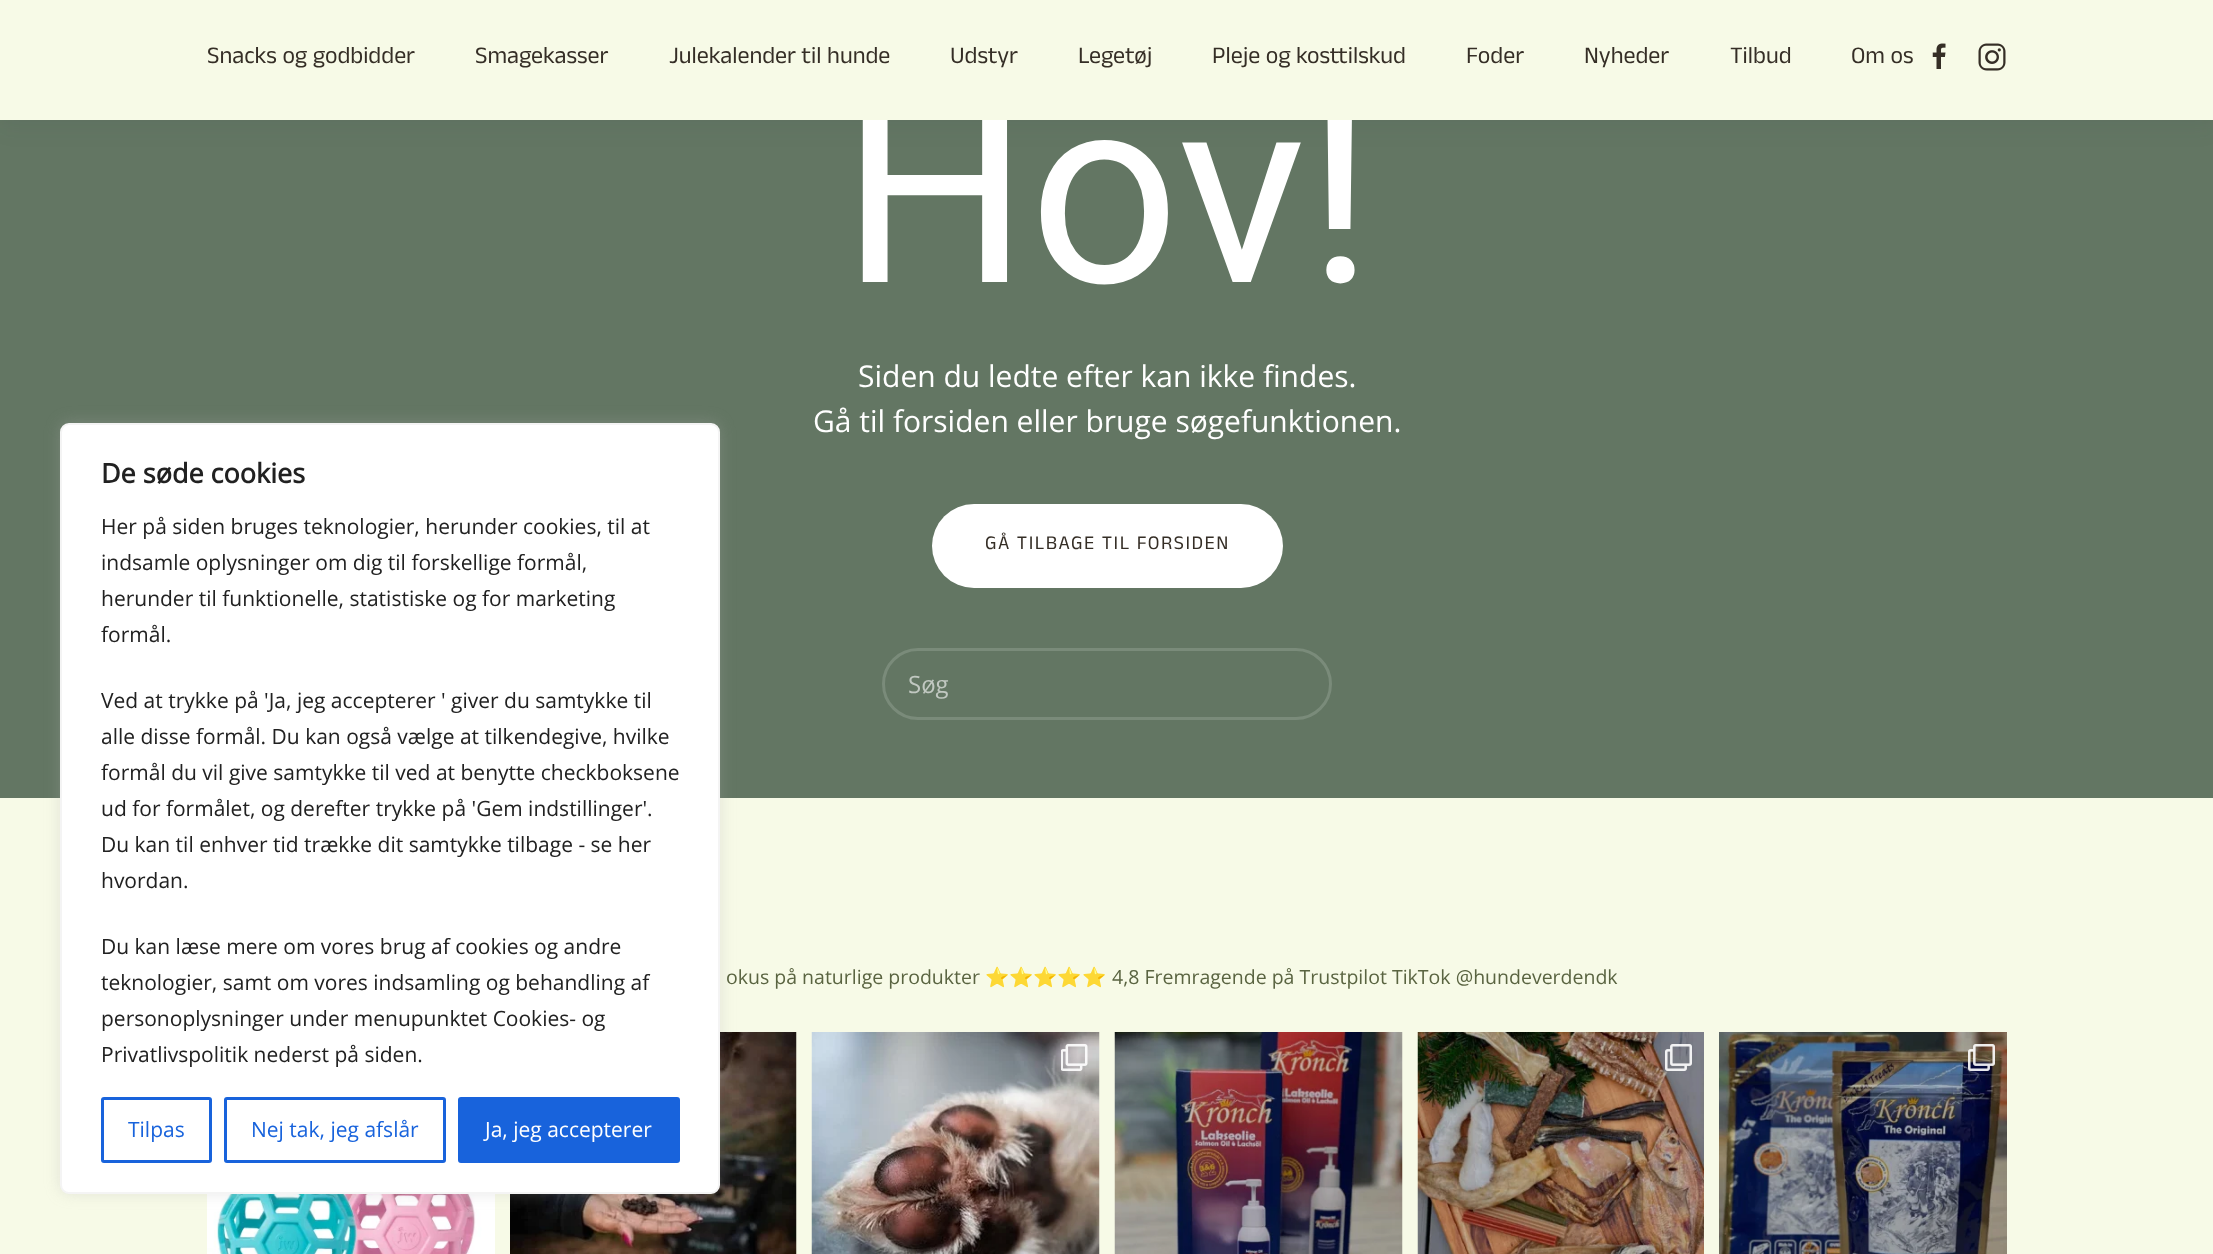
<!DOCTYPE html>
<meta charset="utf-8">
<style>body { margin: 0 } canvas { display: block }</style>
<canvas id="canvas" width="2213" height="1254"></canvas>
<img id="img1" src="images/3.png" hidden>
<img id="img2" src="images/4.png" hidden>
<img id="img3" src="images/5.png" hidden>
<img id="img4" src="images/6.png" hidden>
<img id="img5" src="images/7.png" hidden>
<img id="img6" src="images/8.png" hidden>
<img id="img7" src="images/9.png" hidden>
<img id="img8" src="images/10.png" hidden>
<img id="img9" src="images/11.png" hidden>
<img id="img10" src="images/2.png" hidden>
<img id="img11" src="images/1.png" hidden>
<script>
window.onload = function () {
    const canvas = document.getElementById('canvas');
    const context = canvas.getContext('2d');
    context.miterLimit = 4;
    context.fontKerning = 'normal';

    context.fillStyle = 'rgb(247, 250, 231)';
    context.fillRect(0, 0, 2213, 1254);
    context.fillStyle = 'rgb(99, 118, 99)';
    context.fillRect(0, 120, 2213, 678);
    context.fillStyle = 'rgba(39, 44, 63, 0.06)';
    context.filter = 'blur(11px)';
    context.beginPath();
    context.rect(0, 8, 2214, 120);
    context.fill();
    context.filter = 'none';
    context.fillStyle = 'rgb(255, 255, 255)';
    context.beginPath();
    context.roundRect(932, 504, 351, 84, 42);
    context.fill();
    context.beginPath();
    context.roundRect(883.5, 649.5, 447, 69, 34.5);
    context.strokeStyle = 'rgb(122, 139, 122)';
    context.lineWidth = 3;
    context.stroke();
    context.drawImage(document.getElementById('img1'), 207, 1194, 288, 60);
    context.drawImage(document.getElementById('img2'), 510, 1032, 287, 222);
    context.drawImage(document.getElementById('img3'), 811, 1032, 289, 222);
    context.drawImage(document.getElementById('img4'), 1061, 1044, 27, 27);
    context.drawImage(document.getElementById('img5'), 1114, 1032, 289, 222);
    context.drawImage(document.getElementById('img6'), 1417, 1032, 287, 222);
    context.drawImage(document.getElementById('img7'), 1665, 1044, 27, 27);
    context.drawImage(document.getElementById('img8'), 1719, 1032, 288, 222);
    context.drawImage(document.getElementById('img9'), 1968, 1044, 27, 27);
    context.fillStyle = 'rgba(172, 171, 171, 0.3)';
    context.filter = 'blur(7.5px)';
    context.beginPath();
    context.roundRect(60, 422, 660, 771, 9);
    context.fill();
    context.filter = 'none';
    context.fillStyle = 'rgb(255, 255, 255)';
    context.beginPath();
    context.roundRect(61, 424, 658, 769, 8);
    context.fill();
    context.strokeStyle = 'rgb(244, 244, 244)';
    context.lineWidth = 2;
    context.stroke();
    context.beginPath();
    context.roundRect(102.5, 1098.5, 108, 63, 1.5);
    context.strokeStyle = 'rgb(24, 99, 220)';
    context.lineWidth = 3;
    context.stroke();
    context.beginPath();
    context.roundRect(225.5, 1098.5, 219, 63, 1.5);
    context.stroke();
    context.fillStyle = 'rgb(24, 99, 220)';
    context.beginPath();
    context.roundRect(459.5, 1098.5, 219, 63, 1.5);
    context.fill();
    context.stroke();
    context.font = '264px Roboto';
    context.fillStyle = 'rgb(255, 255, 255)';
    context.fillText('Hov!', 841, 282);
    context.fillStyle = 'rgb(247, 250, 231)';
    context.fillRect(0, 0, 2213, 120);
    context.font = '500 24px Anek Telugu';
    context.fillStyle = 'rgb(53, 46, 38)';
    context.fillText('Om os', 1851, 63);
    context.fillText('Tilbud', 1730, 63);
    context.fillText('Nyheder', 1584, 63);
    context.fillText('Foder', 1466, 63);
    context.fillText('Pleje og kosttilskud', 1212, 63);
    context.fillText('Legetøj', 1078, 63);
    context.fillText('Udstyr', 950, 63);
    context.fillText('Julekalender til hunde', 669, 63);
    context.fillText('Smagekasser', 475, 63);
    context.fillText('Snacks og godbidder', 207, 63);
    context.drawImage(document.getElementById('img10'), 1978, 43, 28, 28);
    context.drawImage(document.getElementById('img11'), 1932, 43, 14, 26);
    context.font = '30px Open Sans';
    context.fillStyle = 'rgb(255, 255, 255)';
    context.fillText('Siden du ledte efter kan ikke findes.', 858, 387);
    context.fillText('Gå til forsiden eller bruge søgefunktionen.', 813, 432);
    context.letterSpacing = '1.5px';
    context.font = '500 19.5px Anek Telugu';
    context.fillStyle = 'rgb(53, 46, 38)';
    context.fillText('GÅ TILBAGE TIL FORSIDEN', 985, 549);
    context.letterSpacing = '0px';
    context.font = '24px Open Sans';
    context.fillStyle = 'rgb(193, 200, 193)';
    context.fillText('Søg', 908, 693);
    context.font = '19.5px Open Sans';
    context.fillStyle = 'rgb(90, 100, 65)';
    context.fillText('okus på naturlige produkter', 726, 984);
    context.font = '19.5px Noto Color Emoji';
    context.fillText('⭐️⭐️⭐️⭐️⭐️', 985, 984);
    context.font = '19.5px Open Sans';
    context.fillText('4,8 Fremragende på Trustpilot TikTok @hundeverdendk', 1112, 984);
    context.font = 'bold 27px Open Sans';
    context.fillStyle = 'rgb(33, 33, 33)';
    context.fillText('De søde cookies', 101, 483);
    context.font = '21px Open Sans';
    context.fillText('Her på siden bruges teknologier, herunder cookies, til at', 101, 534);
    context.fillText('indsamle oplysninger om dig til forskellige formål,', 101, 570);
    context.fillText('herunder til funktionelle, statistiske og for marketing', 101, 606);
    context.fillText('formål.', 101, 642);
    context.fillText('Ved at trykke på \'Ja, jeg accepterer \' giver du samtykke til', 101, 708);
    context.fillText('alle disse formål. Du kan også vælge at tilkendegive, hvilke', 101, 744);
    context.fillText('formål du vil give samtykke til ved at benytte checkboksene', 101, 780);
    context.fillText('ud for formålet, og derefter trykke på \'Gem indstillinger\'.', 101, 816);
    context.fillText('Du kan til enhver tid trække dit samtykke tilbage - se her', 101, 852);
    context.fillText('hvordan.', 101, 888);
    context.fillText('Du kan læse mere om vores brug af cookies og andre', 101, 954);
    context.fillText('teknologier, samt om vores indsamling og behandling af', 101, 990);
    context.fillText('personoplysninger under menupunktet Cookies- og', 101, 1026);
    context.fillText('Privatlivspolitik nederst på siden.', 101, 1062);
    context.fillStyle = 'rgb(24, 99, 220)';
    context.fillText('Tilpas', 128, 1137);
    context.fillText('Nej tak, jeg afslår', 251, 1137);
    context.fillStyle = 'rgb(255, 255, 255)';
    context.fillText('Ja, jeg accepterer', 485, 1137);
};
</script>
